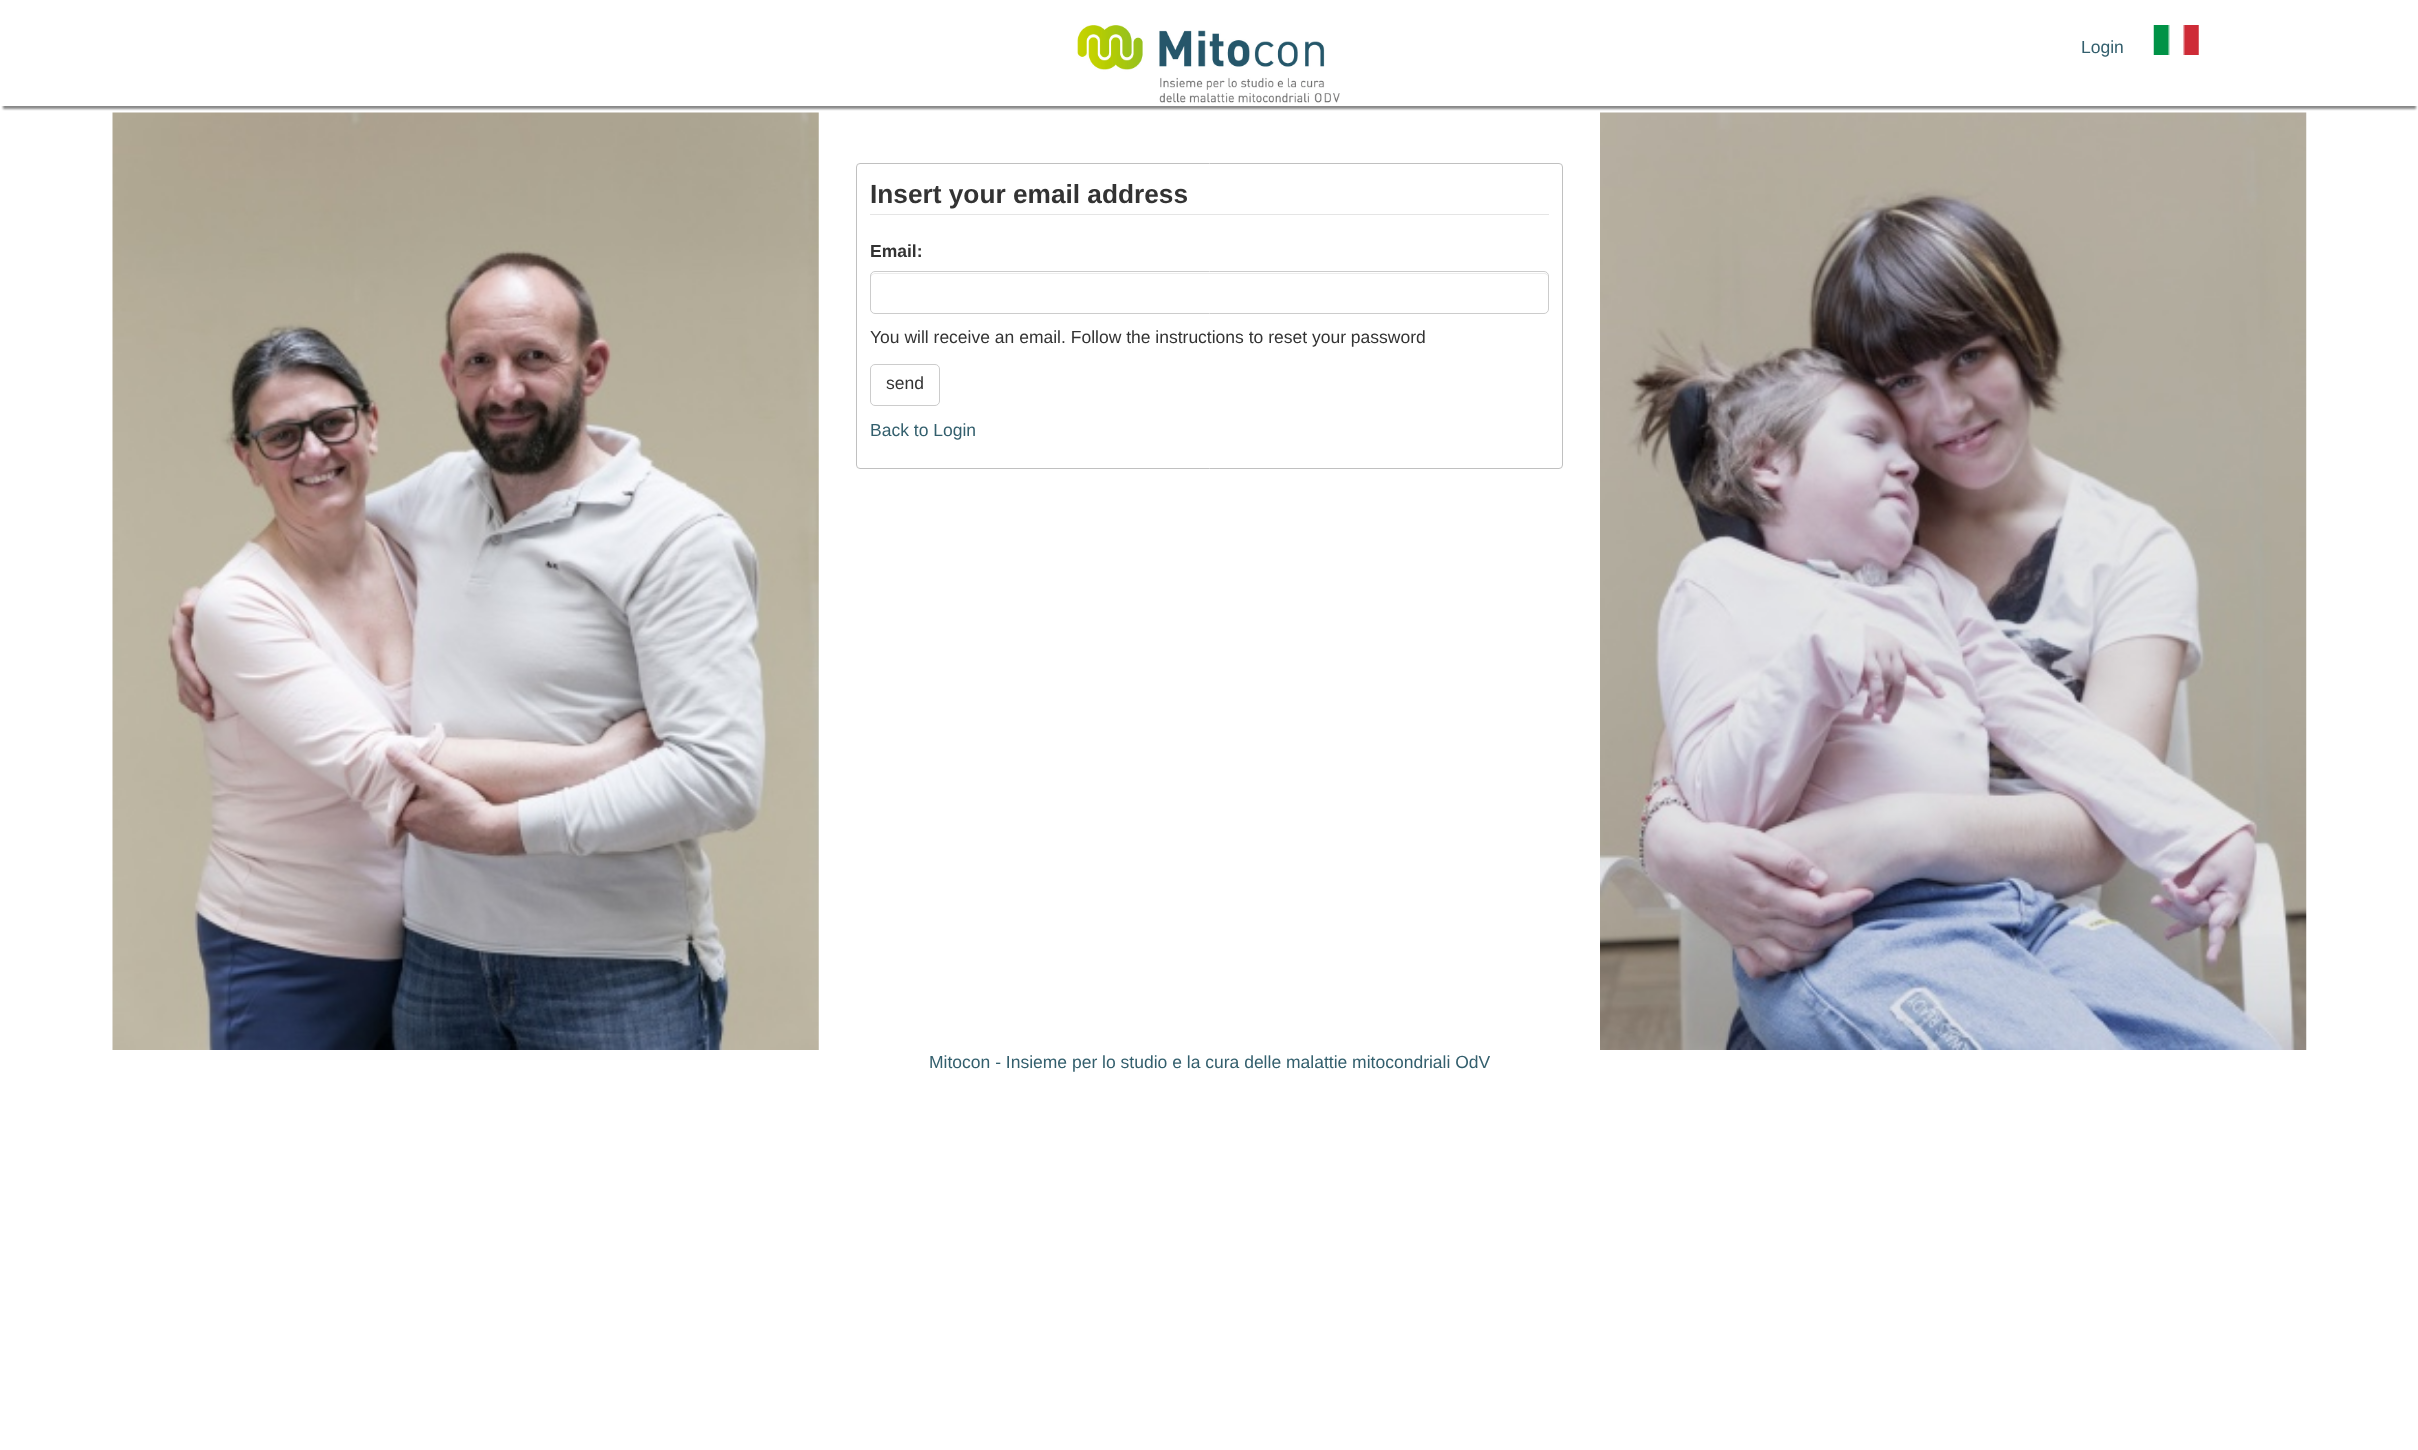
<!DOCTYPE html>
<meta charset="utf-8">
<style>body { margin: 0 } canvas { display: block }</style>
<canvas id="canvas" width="2418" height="1450"></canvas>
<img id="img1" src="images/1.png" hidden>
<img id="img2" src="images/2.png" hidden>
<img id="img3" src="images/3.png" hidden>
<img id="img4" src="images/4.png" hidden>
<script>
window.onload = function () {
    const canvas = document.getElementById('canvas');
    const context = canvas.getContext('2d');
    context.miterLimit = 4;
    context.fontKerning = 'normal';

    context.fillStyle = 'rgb(255, 255, 255)';
    context.fillRect(0, 0, 2418, 1450);
    context.save();
    context.beginPath();
    context.rect(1, 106, 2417, 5);
    context.clip();
    context.fillStyle = 'rgb(136, 136, 136)';
    context.filter = 'blur(1px)';
    context.beginPath();
    context.rect(3, 8, 2413, 101);
    context.fill();
    context.filter = 'none';
    context.restore();
    context.drawImage(document.getElementById('img1'), 1077, 25, 263, 78);
    context.drawImage(document.getElementById('img2'), 2153, 25, 46, 30);
    context.drawImage(document.getElementById('img3'), 112, 112, 707, 938);
    context.beginPath();
    context.roundRect(856.5, 163.5, 706, 305, 3.5);
    context.strokeStyle = 'rgb(192, 192, 192)';
    context.stroke();
    context.fillStyle = 'rgb(229, 229, 229)';
    context.fillRect(870, 214, 679, 1);
    context.fillStyle = 'rgb(236, 236, 236)';
    context.beginPath();
    context.moveTo(875, 274);
    context.lineTo(1544, 274);
    context.bezierCurveTo(1546, 274, 1548, 275, 1548, 278);
    context.bezierCurveTo(1548, 275, 1547, 273, 1544, 273);
    context.lineTo(875, 273);
    context.lineTo(872, 274);
    context.lineTo(871, 275);
    context.lineTo(871, 278);
    context.bezierCurveTo(871, 275, 873, 274, 875, 274);
    context.closePath();
    context.fill();
    context.beginPath();
    context.roundRect(870.5, 271.5, 678, 42, 4.5);
    context.strokeStyle = 'rgb(204, 204, 204)';
    context.stroke();
    context.beginPath();
    context.roundRect(870.5, 364.5, 69, 41, 4.5);
    context.stroke();
    context.drawImage(document.getElementById('img4'), 1600, 112, 707, 938);
    context.font = '17.5px Liberation Sans';
    context.fillStyle = 'rgb(51, 95, 109)';
    context.fillText('Login', 2081, 53);
    context.font = 'bold 26.25px Liberation Sans';
    context.fillStyle = 'rgb(51, 51, 51)';
    context.fillText('Insert your email address', 870, 203);
    context.font = 'bold 17.5px Liberation Sans';
    context.fillText('Email:', 870, 257);
    context.font = '17.5px Liberation Sans';
    context.fillText('You will receive an email. Follow the instructions to reset your password', 870, 343);
    context.fillText('send', 886, 389);
    context.fillStyle = 'rgb(51, 95, 109)';
    context.fillText('Back to Login', 870, 436);
    context.fillText('Mitocon - Insieme per lo studio e la cura delle malattie mitocondriali OdV', 929, 1068);
};
</script>
